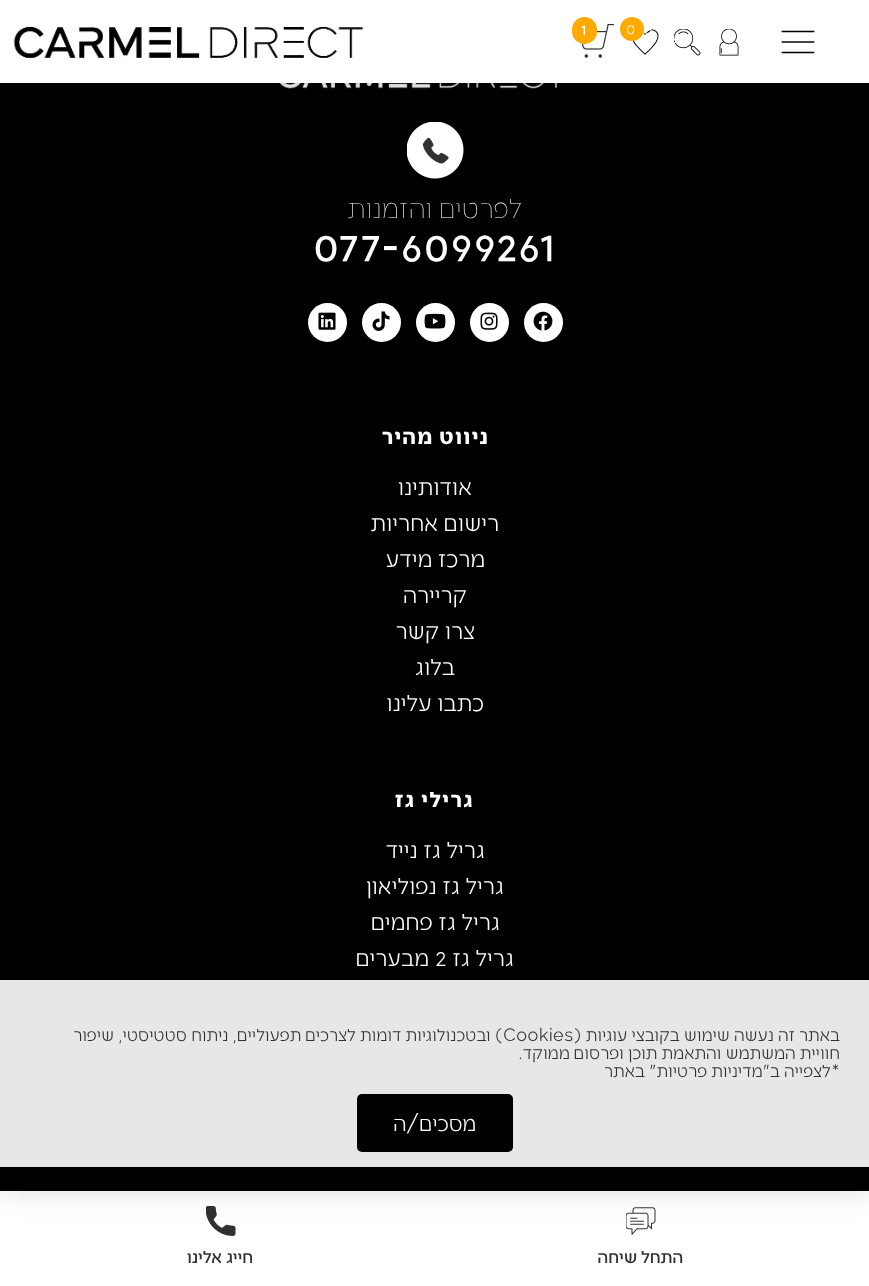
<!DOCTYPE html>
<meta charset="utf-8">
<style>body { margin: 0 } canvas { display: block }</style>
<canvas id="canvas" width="869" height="1286"></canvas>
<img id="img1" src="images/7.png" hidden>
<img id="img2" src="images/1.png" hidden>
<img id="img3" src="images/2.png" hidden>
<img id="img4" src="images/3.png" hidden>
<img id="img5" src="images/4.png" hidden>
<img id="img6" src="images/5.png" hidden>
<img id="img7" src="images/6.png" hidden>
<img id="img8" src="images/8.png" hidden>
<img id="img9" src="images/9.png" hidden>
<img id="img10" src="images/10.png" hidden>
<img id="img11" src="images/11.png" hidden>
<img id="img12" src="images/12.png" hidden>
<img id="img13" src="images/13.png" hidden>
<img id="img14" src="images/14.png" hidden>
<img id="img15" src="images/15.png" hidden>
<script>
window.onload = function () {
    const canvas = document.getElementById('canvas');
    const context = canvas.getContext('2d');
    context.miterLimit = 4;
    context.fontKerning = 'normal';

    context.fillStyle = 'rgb(0, 0, 0)';
    context.fillRect(0, 0, 869, 1286);
    context.drawImage(document.getElementById('img1'), 279, 83, 278, 6);
    context.fillStyle = 'rgba(0, 0, 0, 0.21)';
    context.filter = 'blur(6px)';
    context.beginPath();
    context.rect(0, 5, 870, 82);
    context.fill();
    context.filter = 'none';
    context.fillStyle = 'rgb(255, 255, 255)';
    context.fillRect(0, 0, 869, 83);
    context.drawImage(document.getElementById('img2'), 781, 30, 34, 24);
    context.drawImage(document.getElementById('img3'), 719, 29, 20, 27);
    context.drawImage(document.getElementById('img4'), 674, 29, 27, 27);
    context.drawImage(document.getElementById('img5'), 632, 29, 27, 26);
    context.fillStyle = 'rgb(255, 170, 0)';
    context.beginPath();
    context.arc(632, 29, 12, 0, 2 * Math.PI);
    context.fill();
    context.drawImage(document.getElementById('img6'), 581, 24, 33, 34);
    context.beginPath();
    context.roundRect(572, 17, 25, 27, 12.5);
    context.fill();
    context.drawImage(document.getElementById('img7'), 13, 26, 351, 34);
    context.drawImage(document.getElementById('img8'), 407, 122, 57, 57);
    context.fillStyle = 'rgb(255, 255, 255)';
    context.beginPath();
    context.arc(543.5, 322.5, 19.5, 0, 2 * Math.PI);
    context.fill();
    context.drawImage(document.getElementById('img9'), 533, 311, 20, 20);
    context.beginPath();
    context.arc(489.5, 322.5, 19.5, 0, 2 * Math.PI);
    context.fill();
    context.drawImage(document.getElementById('img10'), 480, 312, 18, 18);
    context.beginPath();
    context.arc(435.5, 322.5, 19.5, 0, 2 * Math.PI);
    context.fill();
    context.drawImage(document.getElementById('img11'), 424, 313, 22, 16);
    context.beginPath();
    context.arc(381.5, 322.5, 19.5, 0, 2 * Math.PI);
    context.fill();
    context.drawImage(document.getElementById('img12'), 372, 311, 18, 20);
    context.beginPath();
    context.arc(327.5, 322.5, 19.5, 0, 2 * Math.PI);
    context.fill();
    context.drawImage(document.getElementById('img13'), 318, 312, 18, 18);
    context.fillRect(0, 1191, 869, 95);
    context.drawImage(document.getElementById('img14'), 626, 1207, 30, 28);
    context.drawImage(document.getElementById('img15'), 206, 1206, 30, 30);
    context.fillStyle = 'rgba(0, 0, 0, 0.2)';
    context.filter = 'blur(17px)';
    context.beginPath();
    context.rect(-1, 987, 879, 197);
    context.fill();
    context.filter = 'none';
    context.fillStyle = 'rgb(231, 231, 231)';
    context.fillRect(0, 980, 869, 187);
    context.fillStyle = 'rgb(0, 0, 0)';
    context.beginPath();
    context.roundRect(357, 1094, 156, 58, 5);
    context.fill();
    context.font = '15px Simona';
    context.fillStyle = 'rgb(255, 255, 255)';
    context.fillText('0', 626, 34);
    context.font = '500 16px Simona';
    context.fillText('1', 581, 35);
    context.direction = 'rtl';
    context.font = '100 28.5px Simona';
    context.fillText('לפרטים והזמנות', 522, 218);
    context.letterSpacing = '0.9px';
    context.direction = 'ltr';
    context.font = '500 43.5px Simona';
    context.fillText('077-6099261', 313, 261);
    context.letterSpacing = '1.5px';
    context.direction = 'rtl';
    context.font = 'bold 22.5px Simona';
    context.fillText('ניווט מהיר', 489, 444);
    context.letterSpacing = '0px';
    context.font = '24px Simona';
    context.fillText('אודותינו', 472, 495);
    context.fillText('רישום אחריות', 499, 531);
    context.fillText('מרכז מידע', 485, 567);
    context.fillText('קריירה', 467, 603);
    context.fillText('צרו קשר', 475, 639);
    context.fillText('בלוג', 455, 675);
    context.fillText('כתבו עלינו', 484, 711);
    context.letterSpacing = '1.5px';
    context.font = 'bold 22.5px Simona';
    context.fillText('גרילי גז', 474, 807);
    context.letterSpacing = '0px';
    context.font = '24px Simona';
    context.fillText('גריל גז נייד', 485, 858);
    context.fillText('גריל גז נפוליאון', 504, 894);
    context.fillText('גריל גז פחמים', 500, 930);
    context.fillText('גריל גז', 514, 966);
    context.direction = 'ltr';
    context.fillText('2', 435, 966);
    context.direction = 'rtl';
    context.fillText('מבערים', 429, 966);
    context.font = '500 18px Simona';
    context.fillStyle = 'rgb(49, 49, 49)';
    context.fillText('התחל שיחה', 683, 1263);
    context.fillText('חייג אלינו', 253, 1263);
    context.font = '18px Simona';
    context.fillText('באתר זה נעשה שימוש בקובצי עוגיות (', 840, 1041);
    context.direction = 'ltr';
    context.fillText('Cookies', 503, 1041);
    context.direction = 'rtl';
    context.fillText(') ובטכנולוגיות דומות לצרכים תפעוליים, ניתוח סטטיסטי, שיפור', 503, 1041);
    context.fillText('חוויית המשתמש והתאמת תוכן ופרסום ממוקד.', 840, 1059);
    context.fillText('*לצפייה ב"מדיניות פרטיות" באתר', 840, 1077);
    context.font = '22.5px Simona';
    context.fillStyle = 'rgb(255, 255, 255)';
    context.fillText('מסכים/ה', 476, 1131);
};
</script>
